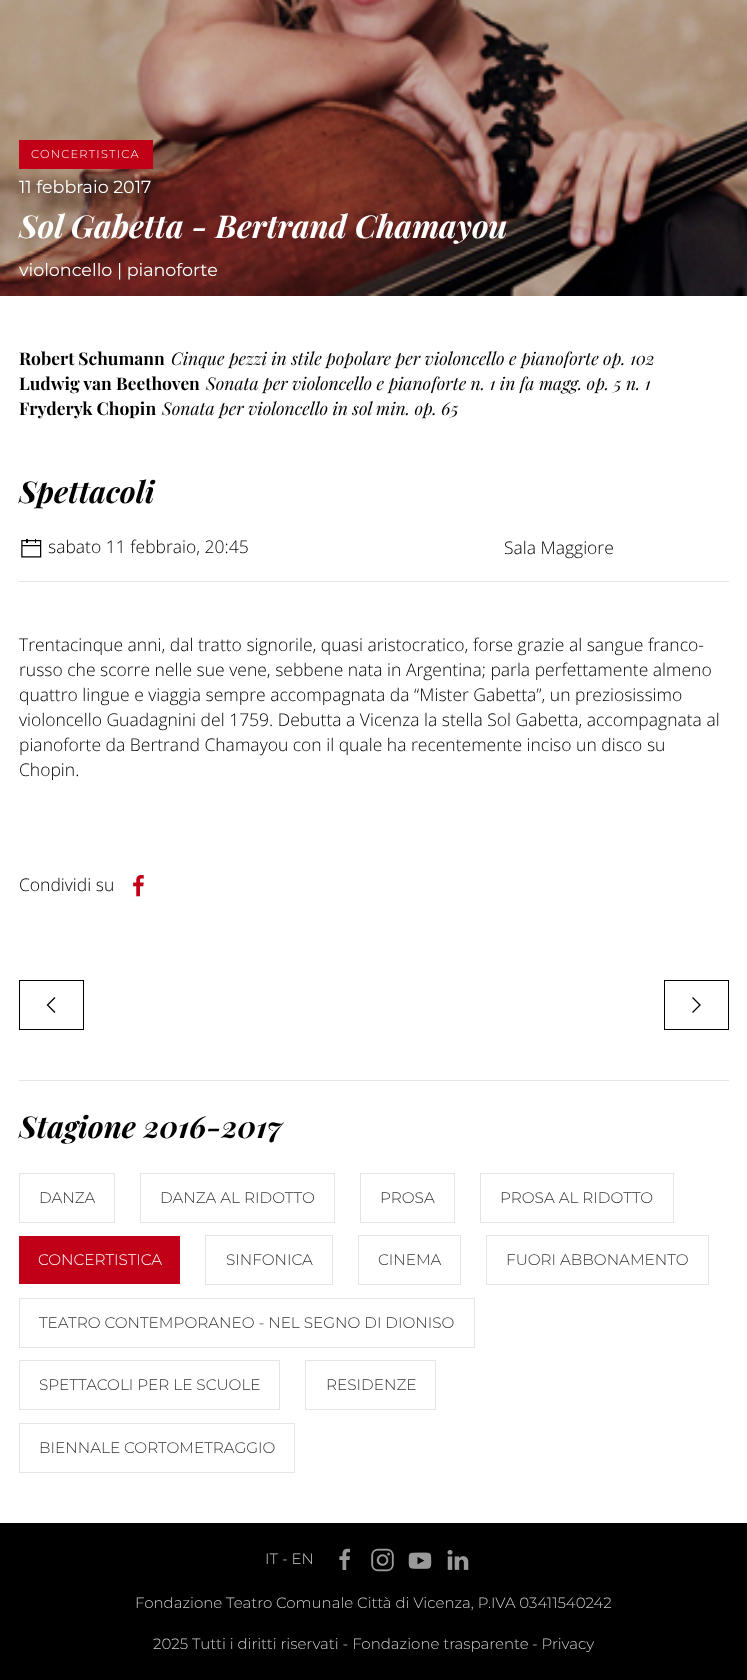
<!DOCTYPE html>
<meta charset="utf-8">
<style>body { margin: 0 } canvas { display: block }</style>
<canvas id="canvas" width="747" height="1680"></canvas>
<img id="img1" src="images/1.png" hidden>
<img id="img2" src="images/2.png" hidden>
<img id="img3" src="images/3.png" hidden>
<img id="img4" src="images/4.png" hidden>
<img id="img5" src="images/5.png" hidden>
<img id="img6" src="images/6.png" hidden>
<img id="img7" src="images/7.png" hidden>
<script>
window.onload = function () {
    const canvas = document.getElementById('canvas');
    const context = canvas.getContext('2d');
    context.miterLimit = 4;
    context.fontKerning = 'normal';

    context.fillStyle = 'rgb(255, 255, 255)';
    context.fillRect(0, 0, 747, 1680);
    context.drawImage(document.getElementById('img1'), 0, 0, 747, 296);
    context.fillStyle = 'rgb(193, 0, 23)';
    context.fillRect(19, 140, 134, 29);
    context.fillStyle = 'rgb(229, 229, 229)';
    context.fillRect(19, 581, 710, 1);
    context.drawImage(document.getElementById('img2'), 21, 539, 21, 19);
    context.drawImage(document.getElementById('img3'), 133, 875, 11, 22);
    context.strokeStyle = 'rgb(0, 0, 0)';
    context.strokeRect(19.5, 980.5, 64, 49);
    context.beginPath();
    context.moveTo(55, 1012.5);
    context.lineTo(47.5, 1005);
    context.lineTo(55, 997.5);
    context.lineWidth = 1.3;
    context.stroke();
    context.lineWidth = 1;
    context.strokeRect(664.5, 980.5, 64, 49);
    context.beginPath();
    context.moveTo(692.5, 997.5);
    context.lineTo(700, 1005);
    context.lineTo(692.5, 1012.5);
    context.lineWidth = 1.3;
    context.stroke();
    context.fillRect(19, 1080, 710, 1);
    context.strokeStyle = 'rgb(229, 229, 229)';
    context.lineWidth = 1;
    context.strokeRect(19.5, 1173.5, 95, 49);
    context.strokeRect(140.5, 1173.5, 194, 49);
    context.strokeRect(360.5, 1173.5, 94, 49);
    context.strokeRect(480.5, 1173.5, 193, 49);
    context.fillStyle = 'rgb(193, 0, 23)';
    context.fillRect(19, 1236, 161, 48);
    context.strokeRect(205.5, 1235.5, 127, 49);
    context.strokeRect(358.5, 1235.5, 102, 49);
    context.strokeRect(486.5, 1235.5, 222, 49);
    context.strokeRect(19.5, 1298.5, 455, 49);
    context.strokeRect(19.5, 1360.5, 260, 49);
    context.strokeRect(305.5, 1360.5, 130, 49);
    context.strokeRect(19.5, 1423.5, 275, 49);
    context.fillStyle = 'rgb(0, 0, 0)';
    context.fillRect(0, 1523, 747, 157);
    context.drawImage(document.getElementById('img4'), 339, 1548, 11, 22);
    context.drawImage(document.getElementById('img5'), 371, 1548, 23, 24);
    context.drawImage(document.getElementById('img6'), 408, 1552, 24, 17);
    context.drawImage(document.getElementById('img7'), 447, 1550, 22, 20);
    context.letterSpacing = '1.25px';
    context.font = '300 11.4px Montserrat';
    context.fillStyle = 'rgb(255, 255, 255)';
    context.fillText('CONCERTISTICA', 31, 158);
    context.letterSpacing = '0px';
    context.font = '17.5px Montserrat';
    context.fillText('11 febbraio 2017', 19, 193);
    context.font = 'italic bold 31.5px Playfair Display';
    context.fillText('Sol Gabetta - Bertrand Chamayou', 19, 238);
    context.font = '17.5px Montserrat';
    context.fillText('violoncello | pianoforte', 19, 276);
    context.font = 'bold 17.5px Playfair Display';
    context.fillStyle = 'rgb(0, 0, 0)';
    context.fillText('Robert Schumann', 19, 365);
    context.font = 'italic 17.5px Playfair Display';
    context.fillText('Cinque pezzi in stile popolare per violoncello e pianoforte op. 102', 171, 365);
    context.font = 'bold 17.5px Playfair Display';
    context.fillText('Ludwig van Beethoven', 19, 390);
    context.font = 'italic 17.5px Playfair Display';
    context.fillText('Sonata per violoncello e pianoforte n. 1 in fa magg. op. 5 n. 1', 206, 390);
    context.font = 'bold 17.5px Playfair Display';
    context.fillText('Fryderyk Chopin', 19, 415);
    context.font = 'italic 17.5px Playfair Display';
    context.fillText('Sonata per violoncello in sol min. op. 65', 162, 415);
    context.font = 'italic bold 30px Playfair Display';
    context.fillText('Spettacoli', 19, 503);
    context.font = '300 17.5px Open Sans';
    context.fillText('sabato 11 febbraio, 20:45', 48, 553);
    context.fillText('Sala Maggiore', 504, 554);
    context.fillText('Trentacinque anni, dal tratto signorile, quasi aristocratico, forse grazie al sangue franco-', 19, 651);
    context.fillText('russo che scorre nelle sue vene, sebbene nata in Argentina; parla perfettamente almeno', 19, 676);
    context.fillText('quattro lingue e viaggia sempre accompagnata da “Mister Gabetta”, un preziosissimo', 19, 701);
    context.fillText('violoncello Guadagnini del 1759. Debutta a Vicenza la stella Sol Gabetta, accompagnata al', 19, 726);
    context.fillText('pianoforte da Bertrand Chamayou con il quale ha recentemente inciso un disco su', 19, 751);
    context.fillText('Chopin.', 19, 776);
    context.fillText('Condividi su', 19, 891);
    context.font = 'italic bold 30px Playfair Display';
    context.fillText('Stagione 2016-2017', 19, 1138);
    context.font = '300 15.3px Montserrat';
    context.fillStyle = 'rgb(51, 51, 51)';
    context.fillText('DANZA', 39, 1203);
    context.fillText('DANZA AL RIDOTTO', 160, 1203);
    context.fillText('PROSA', 380, 1203);
    context.fillText('PROSA AL RIDOTTO', 500, 1203);
    context.fillStyle = 'rgb(255, 255, 255)';
    context.fillText('CONCERTISTICA', 38, 1265);
    context.fillStyle = 'rgb(51, 51, 51)';
    context.fillText('SINFONICA', 226, 1265);
    context.fillText('CINEMA', 378, 1265);
    context.fillText('FUORI ABBONAMENTO', 506, 1265);
    context.fillText('TEATRO CONTEMPORANEO - NEL SEGNO DI DIONISO', 39, 1328);
    context.fillText('SPETTACOLI PER LE SCUOLE', 39, 1390);
    context.fillText('RESIDENZE', 326, 1390);
    context.fillText('BIENNALE CORTOMETRAGGIO', 39, 1453);
    context.font = '300 15px Montserrat';
    context.fillStyle = 'rgb(204, 204, 204)';
    context.fillText('IT', 265, 1564);
    context.fillText('- EN', 282, 1564);
    context.fillText('Fondazione Teatro Comunale Città di Vicenza, P.IVA 03411540242', 135, 1608);
    context.fillText('2025 Tutti i diritti riservati - Fondazione trasparente', 153, 1649);
    context.fillText('- Privacy', 532, 1649);
};
</script>
